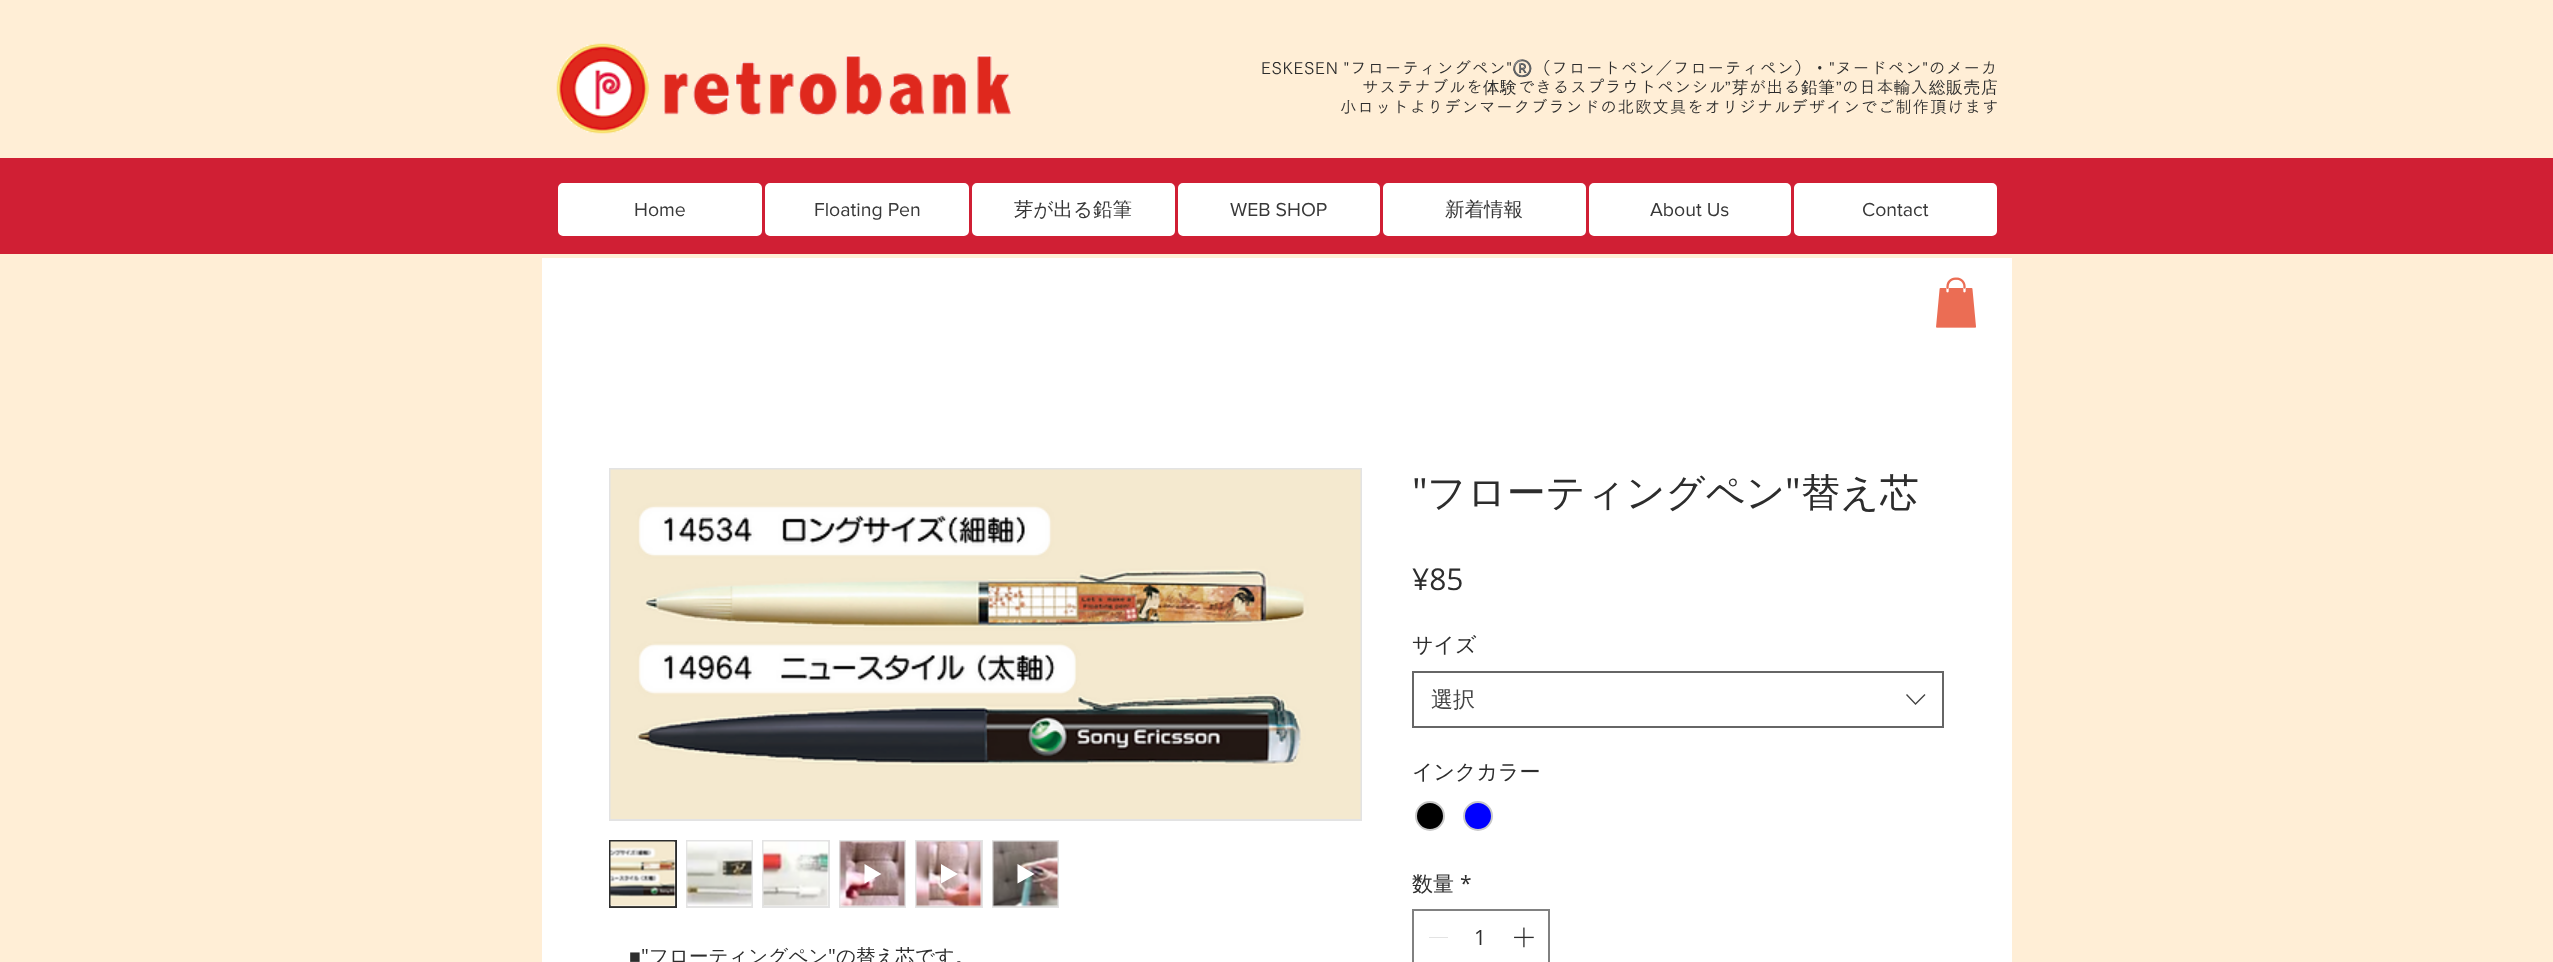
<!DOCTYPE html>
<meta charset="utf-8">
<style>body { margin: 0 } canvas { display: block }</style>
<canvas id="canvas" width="2553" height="962"></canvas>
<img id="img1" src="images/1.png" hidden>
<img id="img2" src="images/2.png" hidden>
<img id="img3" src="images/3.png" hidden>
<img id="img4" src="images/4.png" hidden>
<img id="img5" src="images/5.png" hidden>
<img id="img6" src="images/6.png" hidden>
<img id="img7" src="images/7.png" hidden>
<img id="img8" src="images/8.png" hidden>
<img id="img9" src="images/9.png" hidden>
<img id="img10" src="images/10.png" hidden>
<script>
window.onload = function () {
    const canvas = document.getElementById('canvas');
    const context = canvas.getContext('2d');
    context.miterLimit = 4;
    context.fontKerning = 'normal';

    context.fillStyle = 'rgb(255, 238, 214)';
    context.fillRect(0, 0, 2553, 962);
    context.drawImage(document.getElementById('img1'), 556, 43, 455, 91);
    context.fillStyle = 'rgb(208, 31, 52)';
    context.fillRect(0, 158, 2553, 96);
    context.fillStyle = 'rgb(255, 255, 255)';
    context.beginPath();
    context.roundRect(559, 184, 202, 51, 4);
    context.fill();
    context.strokeStyle = 'rgb(255, 255, 255)';
    context.lineWidth = 2;
    context.stroke();
    context.beginPath();
    context.roundRect(766, 184, 202, 51, 4);
    context.fill();
    context.stroke();
    context.beginPath();
    context.roundRect(973, 184, 201, 51, 4);
    context.fill();
    context.stroke();
    context.beginPath();
    context.roundRect(1179, 184, 200, 51, 4);
    context.fill();
    context.stroke();
    context.beginPath();
    context.roundRect(1384, 184, 201, 51, 4);
    context.fill();
    context.stroke();
    context.beginPath();
    context.roundRect(1590, 184, 200, 51, 4);
    context.fill();
    context.stroke();
    context.beginPath();
    context.roundRect(1795, 184, 201, 51, 4);
    context.fill();
    context.stroke();
    context.fillRect(542, 258, 1470, 704);
    context.drawImage(document.getElementById('img2'), 1936, 277, 40, 51);
    context.strokeStyle = 'rgb(102, 102, 102)';
    context.strokeRect(1413, 672, 530, 55);
    context.fillStyle = 'rgb(68, 68, 68)';
    context.beginPath();
    context.moveTo(1924.5, 694);
    context.lineTo(1925.5, 695);
    context.lineTo(1915.5, 705);
    context.lineTo(1906, 695);
    context.lineTo(1907, 694);
    context.lineTo(1915.5, 703);
    context.closePath();
    context.fill('evenodd');
    context.fillStyle = 'rgb(0, 0, 0)';
    context.beginPath();
    context.arc(1430, 816, 14, 0, 2 * Math.PI);
    context.fill();
    context.strokeStyle = 'rgb(201, 201, 201)';
    context.stroke();
    context.fillStyle = 'rgb(0, 0, 255)';
    context.beginPath();
    context.arc(1478, 816, 14, 0, 2 * Math.PI);
    context.fill();
    context.stroke();
    context.strokeStyle = 'rgb(129, 129, 129)';
    context.strokeRect(1413, 910, 136, 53);
    context.fillStyle = 'rgb(227, 227, 227)';
    context.fillRect(1429, 937, 19, 1);
    context.drawImage(document.getElementById('img3'), 1514, 927, 20, 21);
    context.strokeStyle = 'rgb(227, 227, 227)';
    context.strokeRect(610, 469, 751, 351);
    context.drawImage(document.getElementById('img4'), 610, 469, 751, 350);
    context.strokeStyle = 'rgb(45, 45, 45)';
    context.strokeRect(610, 841, 66, 66);
    context.drawImage(document.getElementById('img5'), 610, 841, 66, 66);
    context.strokeStyle = 'rgb(227, 227, 227)';
    context.strokeRect(687, 841, 65, 66);
    context.drawImage(document.getElementById('img6'), 686, 841, 66, 65);
    context.strokeRect(763, 841, 66, 66);
    context.drawImage(document.getElementById('img7'), 763, 841, 66, 65);
    context.strokeRect(840, 841, 65, 66);
    context.drawImage(document.getElementById('img8'), 839, 841, 66, 66);
    context.fillStyle = 'rgb(255, 255, 255)';
    context.beginPath();
    context.moveTo(864.5, 864);
    context.lineTo(864.5, 883.5);
    context.lineTo(881.5, 874);
    context.closePath();
    context.fill();
    context.strokeRect(916, 841, 66, 66);
    context.drawImage(document.getElementById('img9'), 916, 841, 66, 66);
    context.beginPath();
    context.moveTo(941, 864);
    context.lineTo(941, 883.5);
    context.lineTo(958, 874);
    context.closePath();
    context.fill();
    context.strokeRect(993, 841, 65, 66);
    context.drawImage(document.getElementById('img10'), 992, 841, 66, 66);
    context.beginPath();
    context.moveTo(1017.5, 864);
    context.lineTo(1017.5, 883.5);
    context.lineTo(1034.5, 874);
    context.closePath();
    context.fill();
    context.letterSpacing = '0.85px';
    context.wordSpacing = '-1px';
    context.font = '16.5px "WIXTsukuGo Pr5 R"';
    context.fillStyle = 'rgb(45, 45, 45)';
    context.fillText('ESKESEN "フローティングペン"', 1261, 74);
    context.wordSpacing = '0px';
    context.font = '16.5px Noto Color Emoji';
    context.fillText('®️', 1512, 74);
    context.font = '16.5px "WIXTsukuGo Pr5 R"';
    context.fillText('（フロートペン／フローティペン）・"ヌードペン"のメーカ', 1534, 74);
    context.fillText('サステナブルを', 1362, 93);
    context.font = '500 16.5px WenQuanYi Zen Hei';
    context.fillText('体験', 1483, 93);
    context.font = '16.5px "WIXTsukuGo Pr5 R"';
    context.fillText('できるスプラウトペンシル', 1518, 93);
    context.font = '16.5px Liberation Sans';
    context.fillText('”', 1725, 93);
    context.font = '500 16.5px WenQuanYi Zen Hei';
    context.fillText('芽', 1732, 93);
    context.font = '16.5px "WIXTsukuGo Pr5 R"';
    context.fillText('が出る', 1749, 93);
    context.font = '500 16.5px WenQuanYi Zen Hei';
    context.fillText('鉛筆', 1801, 93);
    context.font = '16.5px Liberation Sans';
    context.fillText('”', 1836, 93);
    context.font = '16.5px "WIXTsukuGo Pr5 R"';
    context.fillText('の日本', 1842, 93);
    context.font = '500 16.5px WenQuanYi Zen Hei';
    context.fillText('輸', 1894, 93);
    context.font = '16.5px "WIXTsukuGo Pr5 R"';
    context.fillText('入', 1911, 93);
    context.font = '500 16.5px WenQuanYi Zen Hei';
    context.fillText('総販売店', 1929, 93);
    context.font = '16.5px "WIXTsukuGo Pr5 R"';
    context.fillText('小ロットよりデンマークブランドの北欧文具をオリジナルデザインでご制作頂けます', 1340, 113);
    context.letterSpacing = '0px';
    context.font = '19.5px "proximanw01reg"';
    context.fillStyle = 'rgb(56, 56, 56)';
    context.fillText('Home', 634, 216);
    context.fillText('Floating Pen', 814, 216);
    context.font = '500 19.5px WenQuanYi Zen Hei';
    context.fillText('芽が出る鉛筆', 1014, 216);
    context.font = '19.5px "proximanw01reg"';
    context.fillText('WEB SHOP', 1230, 216);
    context.font = '500 19.5px WenQuanYi Zen Hei';
    context.fillText('新着情報', 1445, 216);
    context.font = '19.5px "proximanw01reg"';
    context.fillText('About Us', 1650, 216);
    context.fillText('Contact', 1862, 216);
    context.font = '39px Open Sans';
    context.fillStyle = 'rgb(45, 45, 45)';
    context.fillText('"', 1412, 506);
    context.font = '500 39px WenQuanYi Zen Hei';
    context.fillText('フローティングペン', 1427, 506);
    context.font = '39px Open Sans';
    context.fillText('"', 1785, 506);
    context.font = '500 39px WenQuanYi Zen Hei';
    context.fillText('替え芯', 1801, 506);
    context.font = '30px Open Sans';
    context.fillText('¥85', 1412, 590);
    context.font = '500 21px WenQuanYi Zen Hei';
    context.fillText('サイズ', 1412, 652);
    context.font = '500 22px WenQuanYi Zen Hei';
    context.fillStyle = 'rgb(68, 68, 68)';
    context.fillText('選択', 1431, 707);
    context.font = '500 21px WenQuanYi Zen Hei';
    context.fillStyle = 'rgb(45, 45, 45)';
    context.fillText('インクカラー', 1412, 779);
    context.fillText('数量', 1412, 891);
    context.font = '21px Open Sans';
    context.fillText('*', 1460, 891);
    context.fillText('1', 1474, 945);
    context.font = '19.5px Liberation Sans';
    context.fillText('■', 629, 963);
    context.font = '19.5px Open Sans';
    context.fillText('"', 641, 963);
    context.font = '500 19.5px WenQuanYi Zen Hei';
    context.fillText('フローティングペン', 649, 963);
    context.font = '19.5px Open Sans';
    context.fillText('"', 828, 963);
    context.font = '500 19.5px WenQuanYi Zen Hei';
    context.fillText('の替え芯です。', 836, 963);
};
</script>
